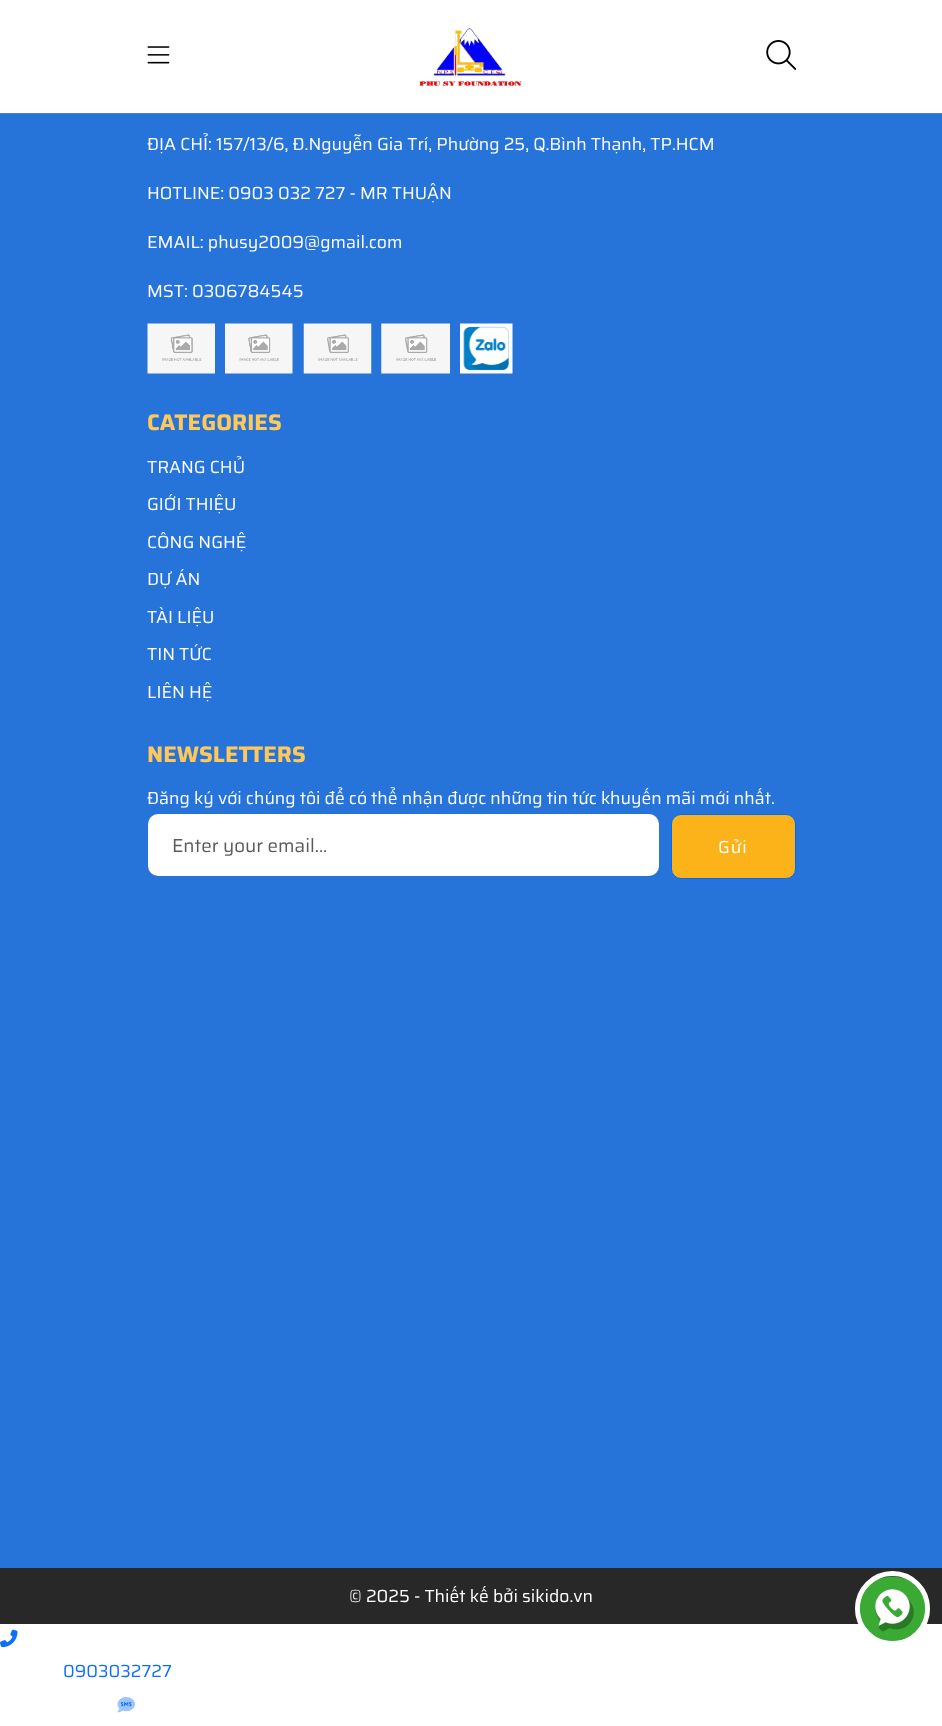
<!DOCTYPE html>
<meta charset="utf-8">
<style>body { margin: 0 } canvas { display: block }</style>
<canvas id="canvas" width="942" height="1726"></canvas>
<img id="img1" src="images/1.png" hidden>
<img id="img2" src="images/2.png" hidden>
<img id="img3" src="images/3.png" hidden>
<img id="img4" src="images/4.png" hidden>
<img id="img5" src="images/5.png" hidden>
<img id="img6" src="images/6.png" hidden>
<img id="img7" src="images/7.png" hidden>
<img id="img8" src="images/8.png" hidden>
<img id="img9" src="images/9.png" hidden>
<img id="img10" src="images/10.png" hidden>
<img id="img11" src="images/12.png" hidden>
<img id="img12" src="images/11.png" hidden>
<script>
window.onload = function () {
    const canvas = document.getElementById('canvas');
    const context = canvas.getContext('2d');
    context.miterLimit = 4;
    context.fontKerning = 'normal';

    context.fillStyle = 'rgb(255, 255, 255)';
    context.fillRect(0, 0, 942, 1726);
    context.fillStyle = 'rgb(38, 116, 218)';
    context.fillRect(0, 113, 942, 1455);
    context.fillStyle = 'rgba(165, 165, 165, 0.3)';
    context.filter = 'blur(0.5px)';
    context.beginPath();
    context.rect(0, 1, 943, 113);
    context.fill();
    context.filter = 'none';
    context.fillStyle = 'rgb(255, 255, 255)';
    context.fillRect(0, 0, 942, 113);
    context.drawImage(document.getElementById('img1'), 147, 46, 23, 18);
    context.drawImage(document.getElementById('img2'), 419, 28, 103, 59);
    context.drawImage(document.getElementById('img3'), 766, 40, 31, 30);
    context.drawImage(document.getElementById('img4'), 147, 323, 68, 51);
    context.drawImage(document.getElementById('img5'), 225, 323, 68, 51);
    context.drawImage(document.getElementById('img6'), 303, 323, 69, 51);
    context.drawImage(document.getElementById('img7'), 381, 323, 69, 51);
    context.drawImage(document.getElementById('img8'), 460, 323, 53, 51);
    context.beginPath();
    context.roundRect(148, 814, 511, 62, 10);
    context.fill();
    context.fillStyle = 'rgb(252, 178, 25)';
    context.beginPath();
    context.roundRect(671.5, 814.5, 124, 64, 9.5);
    context.fill();
    context.strokeStyle = 'rgb(0, 104, 255)';
    context.stroke();
    context.fillStyle = 'rgb(40, 40, 40)';
    context.fillRect(0, 1568, 942, 56);
    context.fillStyle = 'rgb(58, 170, 53)';
    context.beginPath();
    context.roundRect(855, 1578, 75, 62, 31);
    context.fill();
    context.beginPath();
    context.arc(892.5, 1608.5, 35, 0, 2 * Math.PI);
    context.strokeStyle = 'rgb(255, 255, 255)';
    context.lineWidth = 5;
    context.stroke();
    context.drawImage(document.getElementById('img9'), 860, 1576, 65, 65);
    context.drawImage(document.getElementById('img10'), 0, 1629, 18, 19);
    context.drawImage(document.getElementById('img11'), 120, 1701, 12, 6);
    context.drawImage(document.getElementById('img12'), 117, 1697, 18, 16);
    context.font = '17.5px Saira';
    context.fillStyle = 'rgb(255, 255, 255)';
    context.fillText('ĐỊA CHỈ: 157/13/6, Đ.Nguyễn Gia Trí, Phường 25, Q.Bình Thạnh, TP.HCM', 147, 150);
    context.fillText('HOTLINE: 0903 032 727 - MR THUẬN', 147, 199);
    context.fillText('EMAIL: phusy2009@gmail.com', 147, 248);
    context.fillText('MST: 0306784545', 147, 297);
    context.font = 'bold 22.5px Saira';
    context.fillStyle = 'rgb(255, 200, 89)';
    context.fillText('CATEGORIES', 147, 430);
    context.font = '17.5px Saira';
    context.fillStyle = 'rgb(255, 255, 255)';
    context.fillText('TRANG CHỦ', 147, 473);
    context.fillText('GIỚI THIỆU', 147, 510);
    context.fillText('CÔNG NGHỆ', 147, 548);
    context.fillText('DỰ ÁN', 147, 585);
    context.fillText('TÀI LIỆU', 147, 623);
    context.fillText('TIN TỨC', 147, 660);
    context.fillText('LIÊN HỆ', 147, 698);
    context.font = 'bold 22.5px Saira';
    context.fillStyle = 'rgb(255, 200, 89)';
    context.fillText('NEWSLETTERS', 147, 762);
    context.font = '17.5px Saira';
    context.fillStyle = 'rgb(255, 255, 255)';
    context.fillText('Đăng ký với chúng tôi để có thể nhận được những tin tức khuyến mãi mới nhất.', 147, 804);
    context.font = '18.75px Saira';
    context.fillStyle = 'rgb(89, 92, 95)';
    context.fillText('Enter your email...', 172, 852);
    context.letterSpacing = '1px';
    context.font = '17.5px Saira';
    context.fillStyle = 'rgb(255, 255, 255)';
    context.fillText('Gửi', 718, 853);
    context.letterSpacing = '0px';
    context.fillText('© 2025 - Thiết kế bởi sikido.vn', 349, 1602);
    context.fillStyle = 'rgb(13, 110, 253)';
    context.fillText('0903032727', 63, 1677);
};
</script>
